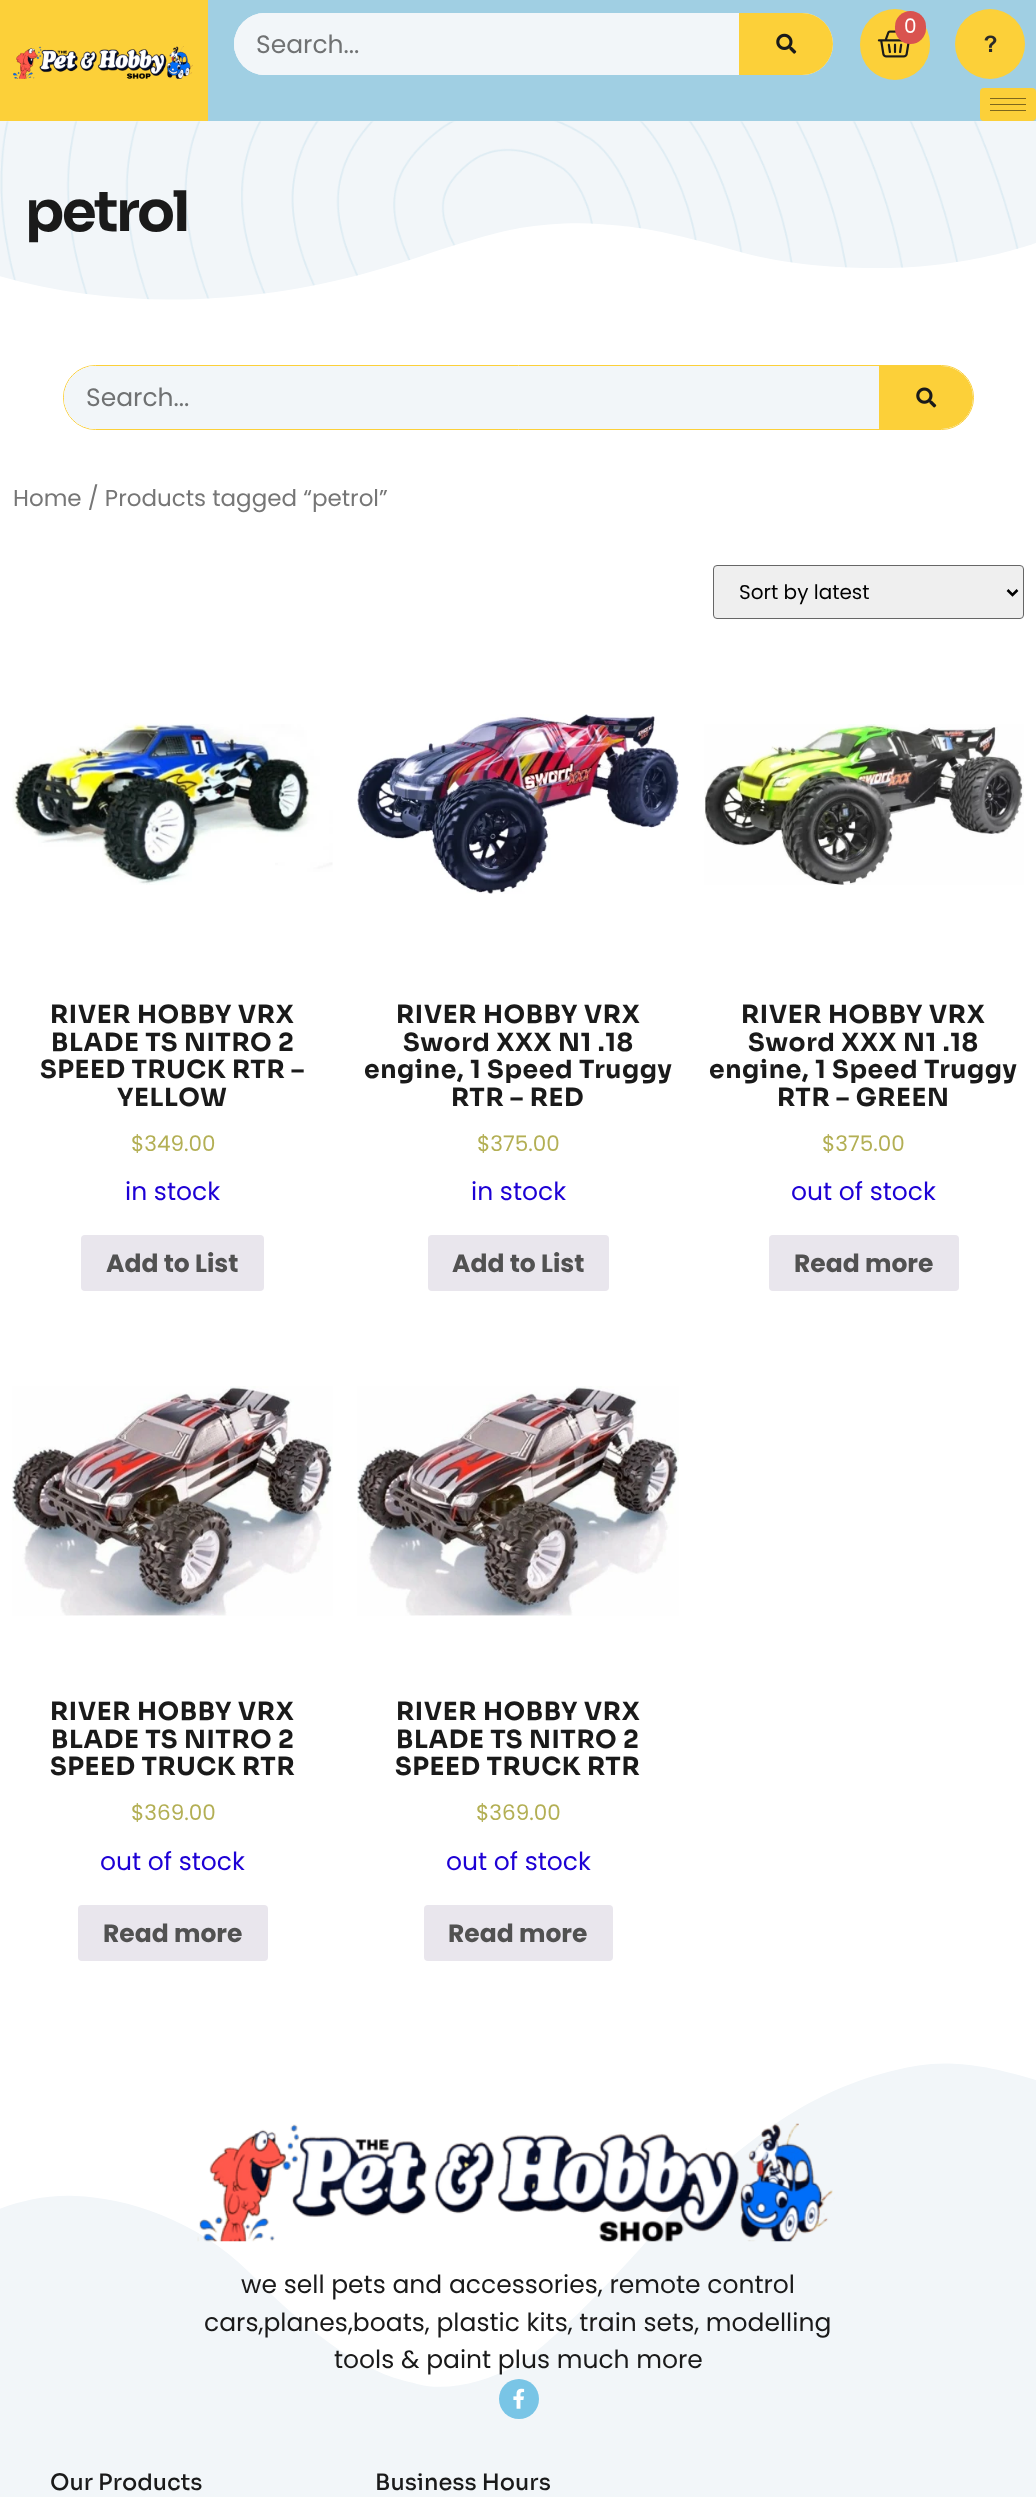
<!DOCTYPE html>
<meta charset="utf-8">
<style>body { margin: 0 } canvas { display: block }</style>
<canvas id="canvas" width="1036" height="2497"></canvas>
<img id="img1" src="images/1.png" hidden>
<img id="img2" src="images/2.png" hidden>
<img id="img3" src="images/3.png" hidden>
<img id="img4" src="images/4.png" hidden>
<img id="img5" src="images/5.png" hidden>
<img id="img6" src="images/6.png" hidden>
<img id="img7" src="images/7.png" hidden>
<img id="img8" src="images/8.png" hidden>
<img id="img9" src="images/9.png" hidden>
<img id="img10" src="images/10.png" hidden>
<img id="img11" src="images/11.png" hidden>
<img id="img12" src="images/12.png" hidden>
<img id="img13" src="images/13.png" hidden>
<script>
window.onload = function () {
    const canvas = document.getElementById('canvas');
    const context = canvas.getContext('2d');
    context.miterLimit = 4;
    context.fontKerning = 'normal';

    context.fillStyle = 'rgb(255, 255, 255)';
    context.fillRect(0, 0, 1036, 2497);
    context.fillStyle = 'rgb(160, 207, 227)';
    context.fillRect(208, 0, 828, 121);
    context.fillStyle = 'rgb(252, 208, 57)';
    context.fillRect(0, 0, 208, 121);
    context.drawImage(document.getElementById('img1'), 13, 46, 180, 33);
    context.beginPath();
    context.roundRect(860, 9, 70, 71, 35);
    context.fill();
    context.drawImage(document.getElementById('img2'), 877, 30, 33, 28);
    context.fillStyle = 'rgb(217, 83, 79)';
    context.beginPath();
    context.roundRect(895, 11, 31, 33, 15.5);
    context.fill();
    context.fillStyle = 'rgb(252, 208, 57)';
    context.beginPath();
    context.arc(990, 44, 35, 0, 2 * Math.PI);
    context.fill();
    context.drawImage(document.getElementById('img3'), 984, 35, 13, 17);
    context.fillStyle = 'rgb(242, 246, 249)';
    context.beginPath();
    context.roundRect(234, 13, 599, 62, 31);
    context.fill();
    context.beginPath();
    context.roundRect(234, 13, 505, 62, [31, 13, 13, 31]);
    context.fill();
    context.beginPath();
    context.moveTo(265, 13);
    context.lineTo(257, 14);
    context.lineTo(726, 14);
    context.bezierCurveTo(733, 14, 738, 19, 738, 26);
    context.lineTo(738, 62);
    context.bezierCurveTo(738, 69, 733, 74, 726, 74);
    context.lineTo(257, 74);
    context.lineTo(265, 75);
    context.lineTo(726, 75);
    context.bezierCurveTo(733, 75, 739, 69, 739, 62);
    context.lineTo(739, 26);
    context.bezierCurveTo(739, 19, 733, 13, 726, 13);
    context.closePath();
    context.moveTo(235, 52);
    context.bezierCurveTo(234, 47, 234, 41, 235, 36);
    context.closePath();
    context.fill('evenodd');
    context.fillStyle = 'rgb(252, 208, 57)';
    context.beginPath();
    context.roundRect(739, 13, 94, 62, [0, 31, 31, 0]);
    context.fill();
    context.drawImage(document.getElementById('img4'), 776, 33, 21, 21);
    context.beginPath();
    context.roundRect(980, 88, 56, 33, 4);
    context.fill();
    context.fillStyle = 'rgb(126, 104, 29)';
    context.fillRect(990, 98, 36, 1);
    context.fillRect(990, 104, 36, 1);
    context.fillRect(990, 110, 36, 1);
    context.fillStyle = 'rgb(242, 246, 249)';
    context.fillRect(0, 121, 1036, 179);
    context.drawImage(document.getElementById('img5'), 0, 121, 1019, 179);
    context.beginPath();
    context.roundRect(63.5, 365.5, 910, 64, 32);
    context.strokeStyle = 'rgb(252, 208, 57)';
    context.stroke();
    context.beginPath();
    context.roundRect(64, 366, 909, 63, 31.5);
    context.fill();
    context.beginPath();
    context.roundRect(64, 366, 815, 63, [31.5, 13, 13, 31.5]);
    context.fill();
    context.beginPath();
    context.moveTo(96, 366);
    context.lineTo(88, 367);
    context.lineTo(866, 367);
    context.bezierCurveTo(873, 367, 878, 372, 878, 379);
    context.lineTo(878, 416);
    context.bezierCurveTo(878, 423, 873, 428, 866, 428);
    context.lineTo(88, 428);
    context.lineTo(96, 429);
    context.lineTo(866, 429);
    context.bezierCurveTo(873, 429, 879, 423, 879, 416);
    context.lineTo(879, 379);
    context.bezierCurveTo(879, 372, 873, 366, 866, 366);
    context.closePath();
    context.moveTo(65, 405);
    context.bezierCurveTo(64, 400, 64, 395, 65, 390);
    context.closePath();
    context.fill('evenodd');
    context.fillStyle = 'rgb(252, 208, 57)';
    context.beginPath();
    context.roundRect(879, 366, 94, 63, [0, 31.5, 31.5, 0]);
    context.fill();
    context.drawImage(document.getElementById('img6'), 916, 387, 21, 21);
    context.fillStyle = 'rgb(239, 239, 239)';
    context.beginPath();
    context.roundRect(713.5, 565.5, 310, 53, 3.5);
    context.fill();
    context.strokeStyle = 'rgb(102, 102, 102)';
    context.stroke();
    context.beginPath();
    context.moveTo(1007.5, 590);
    context.lineTo(1012.5, 595);
    context.lineTo(1017.5, 590);
    context.strokeStyle = 'rgb(0, 0, 0)';
    context.lineWidth = 2.5;
    context.stroke();
    context.drawImage(document.getElementById('img7'), 12, 723, 321, 162);
    context.fillStyle = 'rgb(233, 230, 237)';
    context.beginPath();
    context.roundRect(81, 1235, 183, 56, 4);
    context.fill();
    context.drawImage(document.getElementById('img8'), 357, 714, 322, 180);
    context.beginPath();
    context.roundRect(428, 1235, 181, 56, 4);
    context.fill();
    context.drawImage(document.getElementById('img9'), 704, 724, 320, 161);
    context.beginPath();
    context.roundRect(769, 1235, 190, 56, 4);
    context.fill();
    context.drawImage(document.getElementById('img10'), 12, 1386, 321, 230);
    context.beginPath();
    context.roundRect(78, 1905, 190, 56, 4);
    context.fill();
    context.drawImage(document.getElementById('img11'), 357, 1386, 322, 230);
    context.beginPath();
    context.roundRect(424, 1905, 189, 56, 4);
    context.fill();
    context.fillStyle = 'rgb(242, 246, 249)';
    context.fillRect(0, 2063, 1036, 434);
    context.save();
    context.beginPath();
    context.rect(0, 2048, 1036, 343);
    context.clip();
    context.fillStyle = 'rgb(255, 255, 255)';
    context.beginPath();
    context.moveTo(896, 2070);
    context.bezierCurveTo(819, 2088, 744, 2132, 646, 2242);
    context.bezierCurveTo(607, 2286, 546, 2349, 515, 2366);
    context.bezierCurveTo(485, 2382, 447, 2392, 417, 2384);
    context.bezierCurveTo(404, 2380, 388, 2379, 352, 2358);
    context.bezierCurveTo(317, 2337, 277, 2301, 250, 2273);
    context.bezierCurveTo(196, 2219, 126, 2198, 76, 2196);
    context.bezierCurveTo(-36, 2190, -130, 2302, -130, 2302);
    context.lineTo(-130, 2047);
    context.lineTo(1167, 2047);
    context.lineTo(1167, 2166);
    context.bezierCurveTo(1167, 2166, 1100, 2099, 1029, 2078);
    context.bezierCurveTo(959, 2057, 926, 2063, 896, 2070);
    context.closePath();
    context.fill();
    context.restore();
    context.drawImage(document.getElementById('img12'), 197, 2123, 638, 119);
    context.fillStyle = 'rgb(121, 197, 230)';
    context.beginPath();
    context.arc(519, 2399, 20, 0, 2 * Math.PI);
    context.fill();
    context.drawImage(document.getElementById('img13'), 513, 2388, 12, 21);
    context.font = '20px Poppins';
    context.fillStyle = 'rgb(255, 255, 255)';
    context.fillText('0', 904, 33);
    context.font = '25px Poppins';
    context.fillStyle = 'rgb(112, 114, 115)';
    context.fillText('Search...', 256, 53);
    context.letterSpacing = '-2.5px';
    context.font = 'bold 56px Sora';
    context.fillStyle = 'rgb(26, 26, 26)';
    context.fillText('petrol', 25, 231);
    context.save();
    context.beginPath();
    context.rect(0, 223, 1036, 80);
    context.clip();
    context.fillStyle = 'rgb(255, 255, 255)';
    context.beginPath();
    context.moveTo(216, 298);
    context.bezierCurveTo(278, 294, 337, 284, 416, 258);
    context.bezierCurveTo(447, 247, 496, 232, 520, 228);
    context.bezierCurveTo(545, 224, 575, 222, 599, 224);
    context.bezierCurveTo(609, 225, 622, 225, 651, 230);
    context.bezierCurveTo(679, 235, 711, 244, 733, 250);
    context.bezierCurveTo(776, 263, 831, 268, 872, 268);
    context.bezierCurveTo(962, 270, 1036, 243, 1036, 243);
    context.lineTo(1036, 304);
    context.lineTo(-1, 304);
    context.lineTo(-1, 276);
    context.bezierCurveTo(68, 296, 144, 303, 216, 298);
    context.closePath();
    context.fill();
    context.restore();
    context.letterSpacing = '0px';
    context.font = '25px Poppins';
    context.fillStyle = 'rgb(112, 114, 115)';
    context.fillText('Search...', 86, 406);
    context.font = '23px Poppins';
    context.fillStyle = 'rgb(118, 118, 118)';
    context.fillText('Home / Products tagged “petrol”', 13, 506);
    context.font = '20px Poppins';
    context.fillStyle = 'rgb(0, 0, 0)';
    context.fillText('Sort by latest', 739, 599);
    context.letterSpacing = '0.6px';
    context.font = 'bold 25px Sora';
    context.fillStyle = 'rgb(26, 26, 26)';
    context.fillText('RIVER HOBBY VRX', 50, 1023);
    context.fillText('BLADE TS NITRO 2', 51, 1051);
    context.fillText('SPEED TRUCK RTR –', 40, 1078);
    context.fillText('YELLOW', 117, 1106);
    context.letterSpacing = '0px';
    context.font = '21.5px Poppins';
    context.fillStyle = 'rgb(179, 175, 84)';
    context.fillText('$349.00', 131, 1151);
    context.font = '25px Poppins';
    context.fillStyle = 'rgb(29, 0, 213)';
    context.fillText('in stock', 125, 1200);
    context.font = 'bold 25px Poppins';
    context.fillStyle = 'rgb(81, 81, 81)';
    context.fillText('Add to List', 106, 1272);
    context.letterSpacing = '0.6px';
    context.font = 'bold 25px Sora';
    context.fillStyle = 'rgb(26, 26, 26)';
    context.fillText('RIVER HOBBY VRX', 396, 1023);
    context.fillText('Sword XXX N1 .18', 403, 1051);
    context.fillText('engine, 1 Speed Truggy', 364, 1078);
    context.fillText('RTR – RED', 451, 1106);
    context.letterSpacing = '0px';
    context.font = '21.5px Poppins';
    context.fillStyle = 'rgb(179, 175, 84)';
    context.fillText('$375.00', 477, 1151);
    context.font = '25px Poppins';
    context.fillStyle = 'rgb(29, 0, 213)';
    context.fillText('in stock', 471, 1200);
    context.font = 'bold 25px Poppins';
    context.fillStyle = 'rgb(81, 81, 81)';
    context.fillText('Add to List', 452, 1272);
    context.letterSpacing = '0.6px';
    context.font = 'bold 25px Sora';
    context.fillStyle = 'rgb(26, 26, 26)';
    context.fillText('RIVER HOBBY VRX', 741, 1023);
    context.fillText('Sword XXX N1 .18', 748, 1051);
    context.fillText('engine, 1 Speed Truggy', 709, 1078);
    context.fillText('RTR – GREEN', 777, 1106);
    context.letterSpacing = '0px';
    context.font = '21.5px Poppins';
    context.fillStyle = 'rgb(179, 175, 84)';
    context.fillText('$375.00', 822, 1151);
    context.font = '25px Poppins';
    context.fillStyle = 'rgb(29, 0, 213)';
    context.fillText('out of stock', 791, 1200);
    context.font = 'bold 25px Poppins';
    context.fillStyle = 'rgb(81, 81, 81)';
    context.fillText('Read more', 794, 1272);
    context.letterSpacing = '0.6px';
    context.font = 'bold 25px Sora';
    context.fillStyle = 'rgb(26, 26, 26)';
    context.fillText('RIVER HOBBY VRX', 50, 1720);
    context.fillText('BLADE TS NITRO 2', 51, 1748);
    context.fillText('SPEED TRUCK RTR', 50, 1775);
    context.letterSpacing = '0px';
    context.font = '21.5px Poppins';
    context.fillStyle = 'rgb(179, 175, 84)';
    context.fillText('$369.00', 131, 1820);
    context.font = '25px Poppins';
    context.fillStyle = 'rgb(29, 0, 213)';
    context.fillText('out of stock', 100, 1870);
    context.font = 'bold 25px Poppins';
    context.fillStyle = 'rgb(81, 81, 81)';
    context.fillText('Read more', 103, 1942);
    context.letterSpacing = '0.6px';
    context.font = 'bold 25px Sora';
    context.fillStyle = 'rgb(26, 26, 26)';
    context.fillText('RIVER HOBBY VRX', 396, 1720);
    context.fillText('BLADE TS NITRO 2', 396, 1748);
    context.fillText('SPEED TRUCK RTR', 395, 1775);
    context.letterSpacing = '0px';
    context.font = '21.5px Poppins';
    context.fillStyle = 'rgb(179, 175, 84)';
    context.fillText('$369.00', 476, 1820);
    context.font = '25px Poppins';
    context.fillStyle = 'rgb(29, 0, 213)';
    context.fillText('out of stock', 446, 1870);
    context.font = 'bold 25px Poppins';
    context.fillStyle = 'rgb(81, 81, 81)';
    context.fillText('Read more', 448, 1942);
    context.font = '25px Poppins';
    context.fillStyle = 'rgb(26, 26, 26)';
    context.fillText('we sell pets and accessories, remote control', 241, 2293);
    context.fillText('cars,planes,boats, plastic kits, train sets, modelling', 204, 2331);
    context.fillText('tools & paint plus much more', 334, 2368);
    context.font = '500 22.5px Sora';
    context.fillText('Our Products', 50, 2490);
    context.fillText('Business Hours', 375, 2490);
};
</script>
